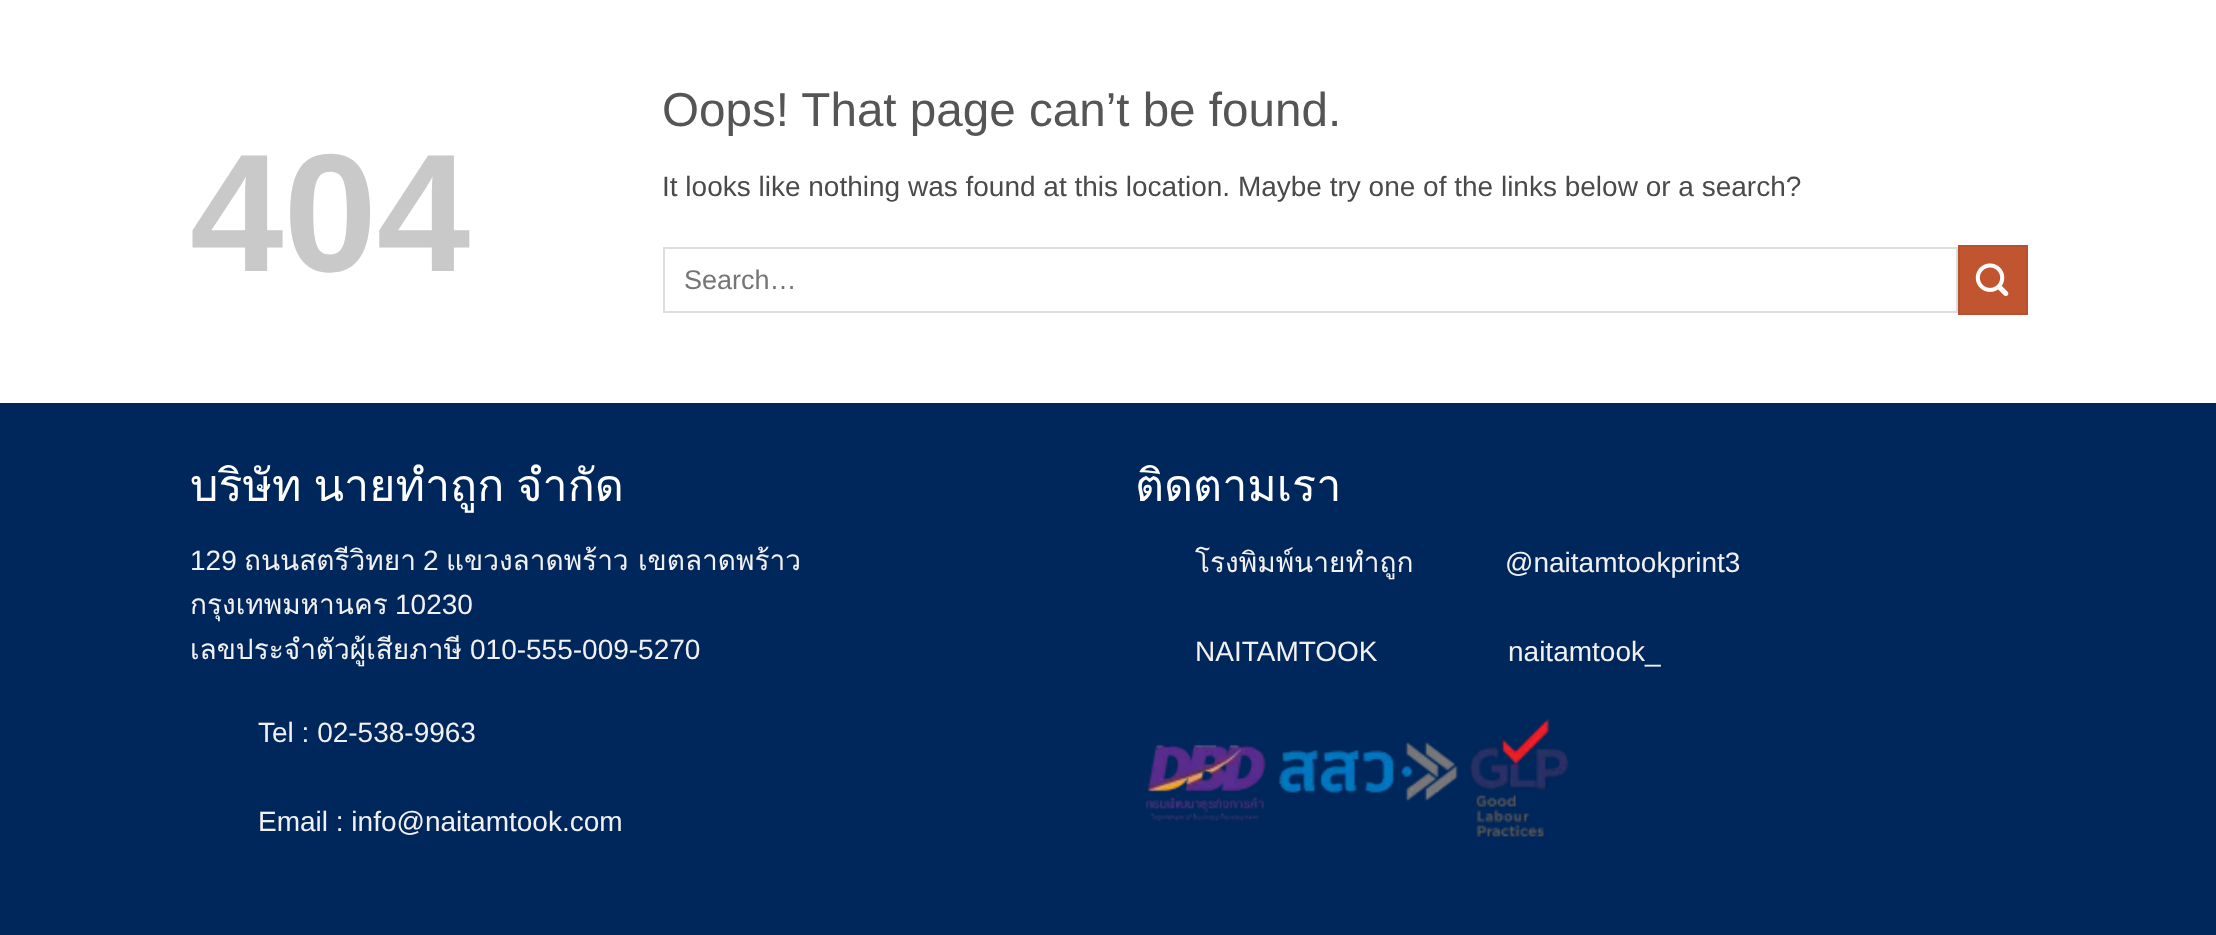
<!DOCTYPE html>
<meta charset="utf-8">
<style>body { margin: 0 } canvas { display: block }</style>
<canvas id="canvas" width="2216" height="935"></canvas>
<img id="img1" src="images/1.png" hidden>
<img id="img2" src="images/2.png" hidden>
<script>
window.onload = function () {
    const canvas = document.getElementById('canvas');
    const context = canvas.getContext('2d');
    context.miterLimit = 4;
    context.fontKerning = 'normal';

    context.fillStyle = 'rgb(255, 255, 255)';
    context.fillRect(0, 0, 2216, 935);
    context.strokeStyle = 'rgb(221, 221, 221)';
    context.lineWidth = 2;
    context.strokeRect(664, 248, 1293, 64);
    context.fillStyle = 'rgb(192, 85, 48)';
    context.beginPath();
    context.rect(1959, 246, 68, 68);
    context.fill();
    context.strokeStyle = 'rgb(182, 81, 46)';
    context.stroke();
    context.drawImage(document.getElementById('img1'), 1975, 263, 34, 33);
    context.fillStyle = 'rgb(0, 39, 91)';
    context.fillRect(0, 405, 2216, 530);
    context.fillStyle = 'rgb(0, 37, 86)';
    context.fillRect(0, 403, 2216, 2);
    context.drawImage(document.getElementById('img2'), 1145, 718, 424, 119);
    context.font = 'bold 168px Liberation Sans';
    context.fillStyle = 'rgb(201, 201, 201)';
    context.fillText('404', 190, 271);
    context.font = '47.6px Liberation Sans';
    context.fillStyle = 'rgb(85, 85, 85)';
    context.fillText('Oops! That page can’t be found.', 662, 126);
    context.font = '28px Liberation Sans';
    context.fillStyle = 'rgb(74, 74, 74)';
    context.fillText('It looks like nothing was found at this location. Maybe try one of the links below or a search?', 662, 196);
    context.font = '27px Liberation Sans';
    context.fillStyle = 'rgb(117, 117, 117)';
    context.fillText('Search…', 684, 289);
    context.wordSpacing = '-3px';
    context.font = '44.75px Loma';
    context.fillStyle = 'rgb(255, 255, 255)';
    context.fillText('บริษัท นายทำถูก จำกัด', 190, 501);
    context.wordSpacing = '0px';
    context.font = '28px Liberation Sans';
    context.fillStyle = 'rgb(241, 241, 241)';
    context.fillText('129', 190, 570);
    context.font = '28px Loma';
    context.fillText('ถนนสตรีวิทยา', 244, 570);
    context.font = '28px Liberation Sans';
    context.fillText('2', 423, 570);
    context.font = '28px Loma';
    context.fillText('แขวงลาดพร้าว เขตลาดพร้าว', 446, 570);
    context.fillText('กรุงเทพมหานคร', 190, 614);
    context.font = '28px Liberation Sans';
    context.fillText('10230', 395, 614);
    context.font = '28px Loma';
    context.fillText('เลขประจำตัวผู้เสียภาษี', 190, 659);
    context.font = '28px Liberation Sans';
    context.fillText('010-555-009-5270', 470, 659);
    context.fillText('Tel : 02-538-9963', 258, 742);
    context.fillText('Email : info@naitamtook.com', 258, 831);
    context.font = '44.75px Loma';
    context.fillStyle = 'rgb(255, 255, 255)';
    context.fillText('ติดตามเรา', 1135, 501);
    context.font = '28px Loma';
    context.fillStyle = 'rgb(241, 241, 241)';
    context.fillText('โรงพิมพ์นายทำถูก', 1195, 572);
    context.font = '28px Liberation Sans';
    context.fillText('@naitamtookprint3', 1505, 572);
    context.fillText('NAITAMTOOK', 1195, 661);
    context.fillText('naitamtook_', 1508, 661);
};
</script>
